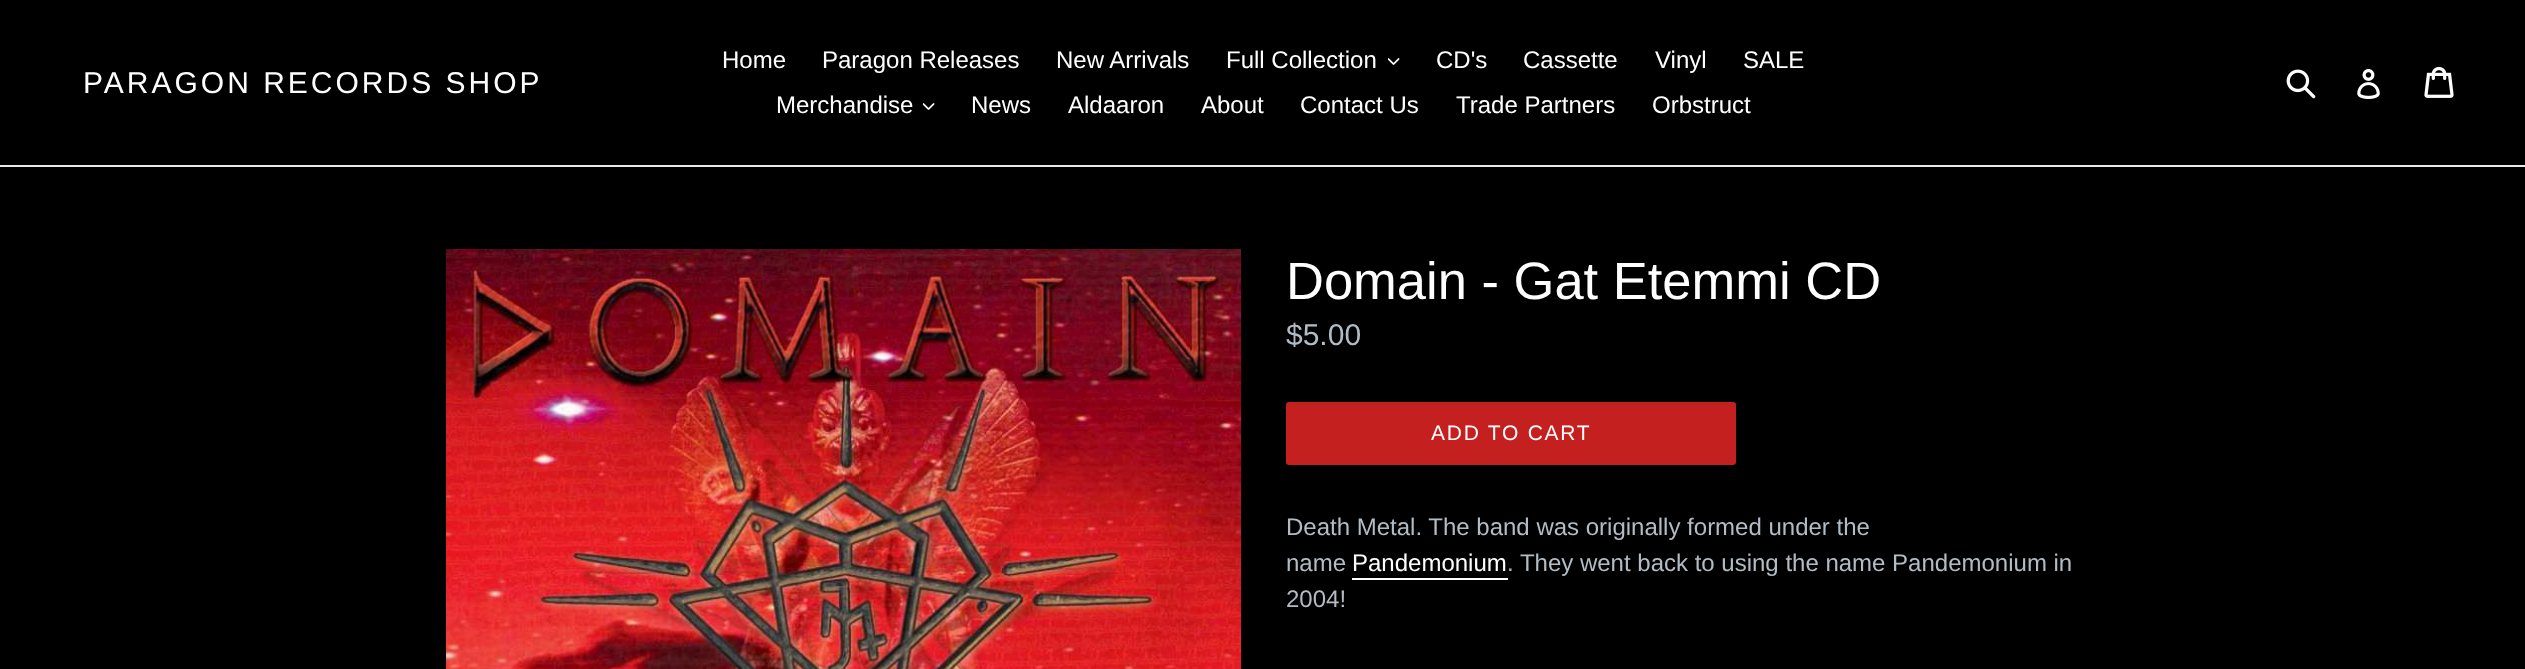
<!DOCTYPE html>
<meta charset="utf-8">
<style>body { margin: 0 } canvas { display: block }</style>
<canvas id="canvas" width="2525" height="669"></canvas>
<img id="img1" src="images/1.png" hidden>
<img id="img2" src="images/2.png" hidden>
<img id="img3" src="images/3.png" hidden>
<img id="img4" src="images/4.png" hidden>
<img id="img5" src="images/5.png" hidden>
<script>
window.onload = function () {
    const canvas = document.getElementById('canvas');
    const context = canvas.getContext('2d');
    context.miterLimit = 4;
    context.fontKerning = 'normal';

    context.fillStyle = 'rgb(0, 0, 0)';
    context.fillRect(0, 0, 2525, 669);
    context.fillStyle = 'rgb(232, 233, 235)';
    context.fillRect(0, 165, 2525, 2);
    context.drawImage(document.getElementById('img1'), 1388, 58, 12, 7);
    context.drawImage(document.getElementById('img1'), 923, 103, 12, 7);
    context.drawImage(document.getElementById('img2'), 2286, 69, 30, 30);
    context.drawImage(document.getElementById('img3'), 2357, 69, 23, 30);
    context.drawImage(document.getElementById('img4'), 2424, 66, 30, 32);
    context.drawImage(document.getElementById('img5'), 446, 249, 795, 420);
    context.fillStyle = 'rgb(196, 32, 32)';
    context.beginPath();
    context.roundRect(1286, 402, 450, 63, 3);
    context.fill();
    context.fillStyle = 'rgb(254, 254, 254)';
    context.fillRect(1352, 578, 156, 2);
    context.letterSpacing = '3px';
    context.font = '30px Liberation Sans';
    context.fillText('PARAGON RECORDS SHOP', 83, 93);
    context.letterSpacing = '0px';
    context.font = '24px Liberation Sans';
    context.fillText('Home', 722, 68);
    context.fillText('Paragon Releases', 822, 68);
    context.fillText('New Arrivals', 1056, 68);
    context.fillText('Full Collection', 1226, 68);
    context.fillText('CD\'s', 1436, 68);
    context.fillText('Cassette', 1523, 68);
    context.fillText('Vinyl', 1655, 68);
    context.fillText('SALE', 1743, 68);
    context.fillText('Merchandise', 776, 113);
    context.fillText('News', 971, 113);
    context.fillText('Aldaaron', 1068, 113);
    context.fillText('About', 1201, 113);
    context.fillText('Contact Us', 1300, 113);
    context.fillText('Trade Partners', 1456, 113);
    context.fillText('Orbstruct', 1652, 113);
    context.font = '52.5px Liberation Sans';
    context.fillText('Domain - Gat Etemmi CD', 1286, 299);
    context.font = '30px Liberation Sans';
    context.fillStyle = 'rgb(178, 188, 196)';
    context.fillText('$5.00', 1286, 345);
    context.letterSpacing = '1.75px';
    context.font = '21px Liberation Sans';
    context.fillStyle = 'rgb(254, 254, 254)';
    context.fillText('ADD TO CART', 1431, 440);
    context.letterSpacing = '0px';
    context.font = '24px Liberation Sans';
    context.fillStyle = 'rgb(178, 188, 196)';
    context.fillText('Death Metal. The band was originally formed under the', 1286, 535);
    context.fillText('name', 1286, 571);
    context.fillStyle = 'rgb(254, 254, 254)';
    context.fillText('Pandemonium', 1352, 571);
    context.fillStyle = 'rgb(178, 188, 196)';
    context.fillText('. They went back to using the name Pandemonium in', 1507, 571);
    context.fillText('2004!', 1286, 607);
};
</script>
